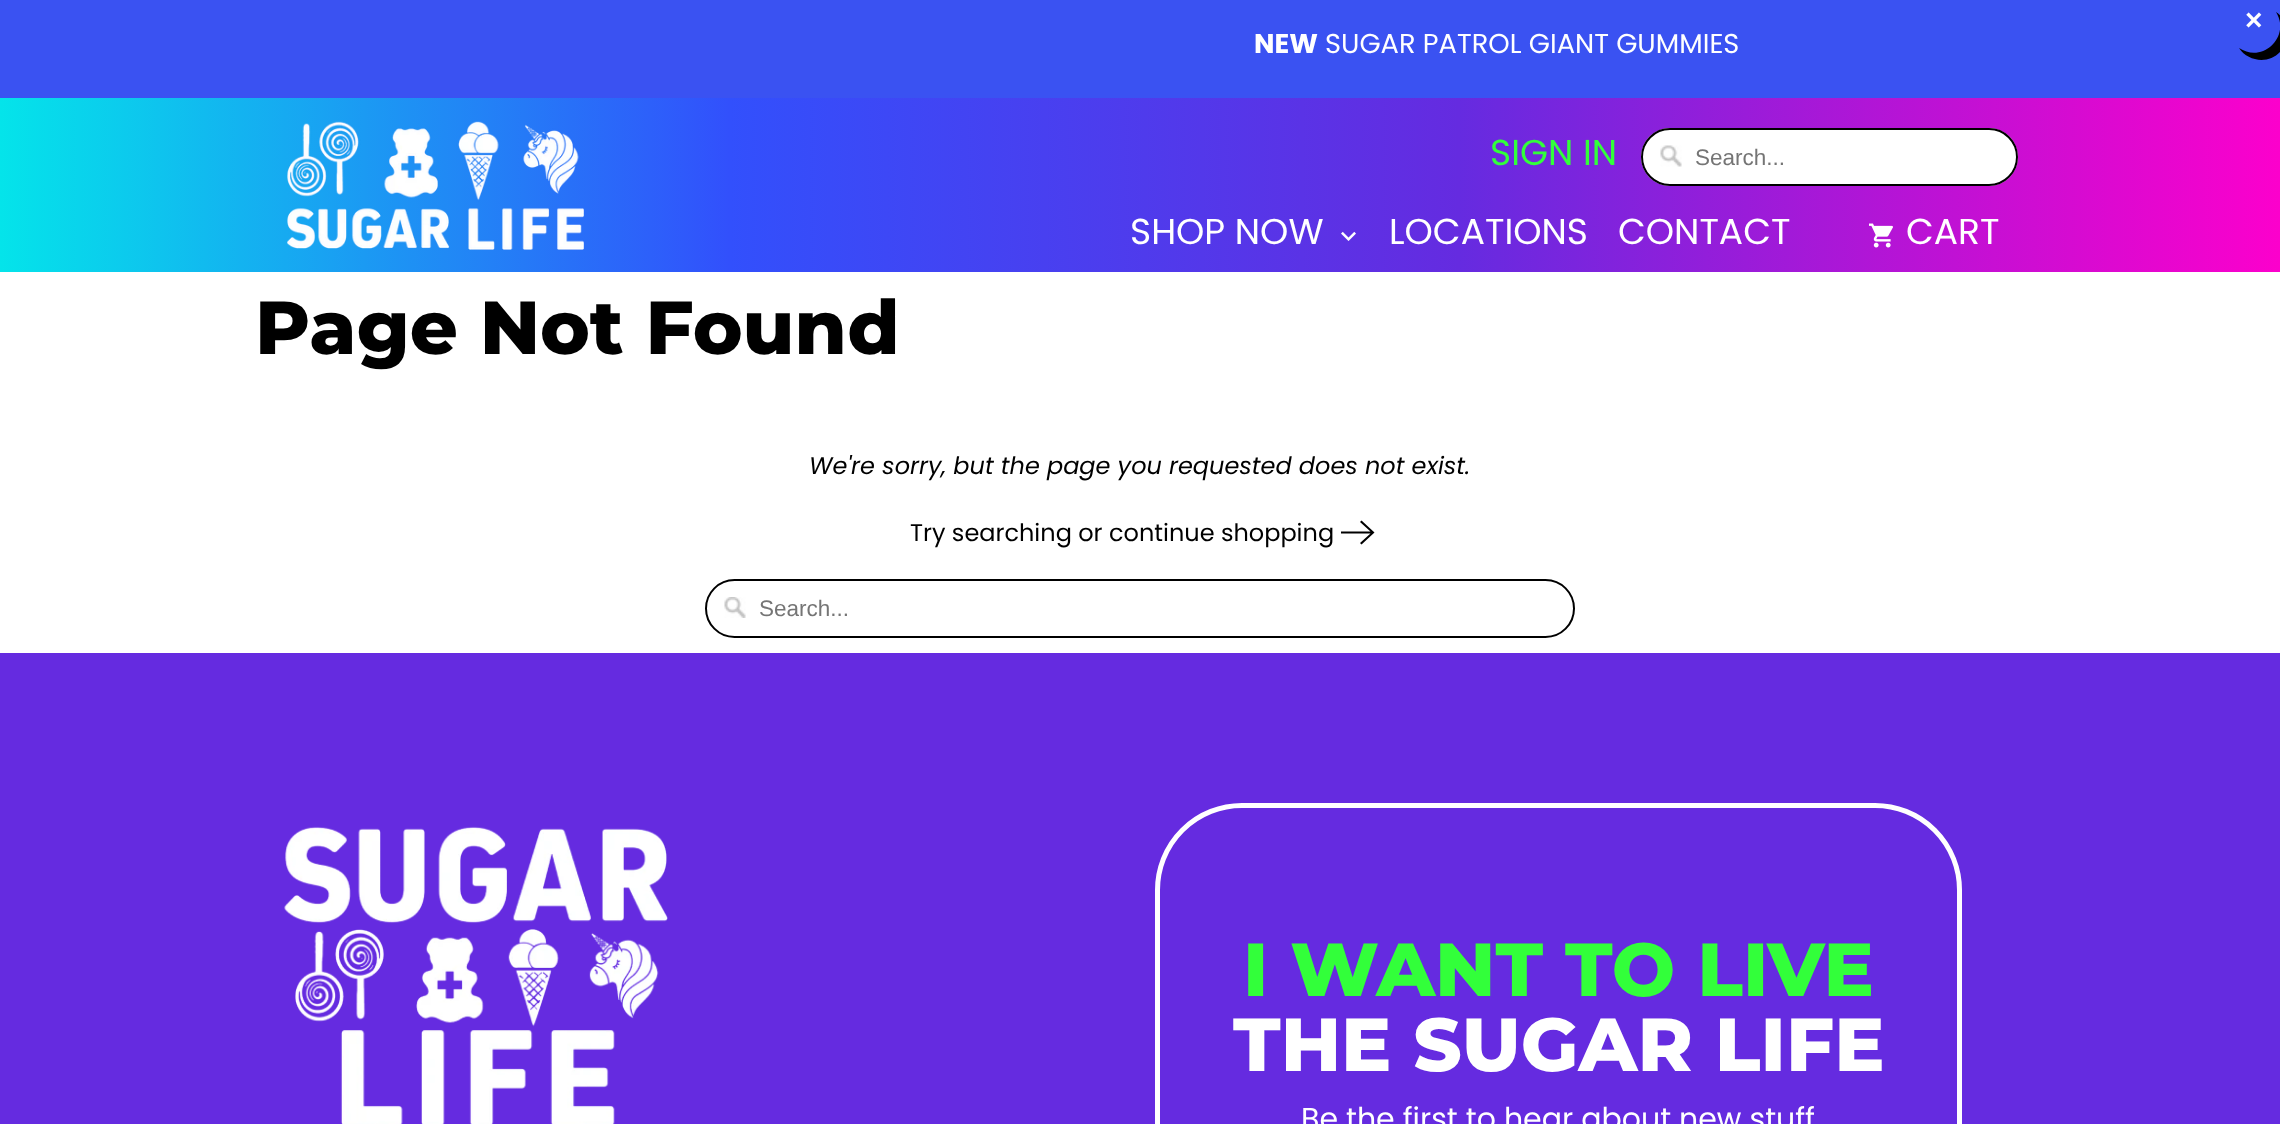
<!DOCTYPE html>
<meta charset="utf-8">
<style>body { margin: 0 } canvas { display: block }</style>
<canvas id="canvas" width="2280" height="1124"></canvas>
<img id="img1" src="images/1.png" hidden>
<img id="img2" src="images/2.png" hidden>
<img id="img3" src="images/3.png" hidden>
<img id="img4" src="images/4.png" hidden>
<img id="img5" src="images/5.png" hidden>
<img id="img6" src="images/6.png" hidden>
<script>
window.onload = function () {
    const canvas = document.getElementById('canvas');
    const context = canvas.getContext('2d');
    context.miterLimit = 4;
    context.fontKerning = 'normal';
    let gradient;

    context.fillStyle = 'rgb(255, 255, 255)';
    context.fillRect(0, 0, 2280, 1124);
    context.fillStyle = 'rgb(58, 82, 242)';
    context.fillRect(0, 0, 2280, 98);
    context.fillStyle = 'rgb(0, 0, 0)';
    context.beginPath();
    context.moveTo(2239, 48);
    context.bezierCurveTo(2248, 62, 2269, 64, 2280, 52);
    context.bezierCurveTo(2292, 41, 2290, 21, 2276, 12);
    context.bezierCurveTo(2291, 36, 2263, 64, 2239, 48);
    context.closePath();
    context.fill();
    gradient = context.createLinearGradient(2280, 184, 0, 185);
    gradient.addColorStop(0, 'rgb(252, 0, 204)');
    gradient.addColorStop(0.36, 'rgb(101, 43, 224)');
    gradient.addColorStop(0.68, 'rgb(50, 80, 252)');
    gradient.addColorStop(1, 'rgb(4, 228, 234)');
    context.fillStyle = gradient;
    context.fillRect(0, 98, 2280, 174);
    context.drawImage(document.getElementById('img1'), 287, 121, 297, 129);
    context.fillStyle = 'rgb(255, 255, 255)';
    context.beginPath();
    context.roundRect(1641, 128, 377, 58, 29);
    context.fill();
    context.drawImage(document.getElementById('img2'), 1660, 145, 22, 22);
    context.beginPath();
    context.roundRect(1642, 129, 375, 56, 28);
    context.strokeStyle = 'rgb(0, 0, 0)';
    context.lineWidth = 2;
    context.stroke();
    context.drawImage(document.getElementById('img3'), 1341, 231, 15, 10);
    context.drawImage(document.getElementById('img4'), 1869, 223, 24, 25);
    context.fillStyle = 'rgb(0, 0, 0)';
    context.beginPath();
    context.moveTo(1374.5, 532.5);
    context.lineTo(1361.5, 544.5);
    context.lineTo(1360, 543);
    context.lineTo(1370.5, 533.5);
    context.lineTo(1341, 533.5);
    context.lineTo(1341, 531.5);
    context.lineTo(1370.5, 531.5);
    context.lineTo(1360, 522);
    context.lineTo(1361.5, 520.5);
    context.closePath();
    context.fill();
    context.drawImage(document.getElementById('img5'), 724, 597, 22, 21);
    context.beginPath();
    context.roundRect(706, 580, 868, 57, 28.5);
    context.stroke();
    context.fillStyle = 'rgb(101, 43, 224)';
    context.fillRect(0, 653, 2280, 471);
    context.drawImage(document.getElementById('img6'), 284, 826, 384, 298);
    context.beginPath();
    context.roundRect(1157.5, 805.5, 802, 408, 84.5);
    context.strokeStyle = 'rgb(255, 255, 255)';
    context.lineWidth = 5;
    context.stroke();
    context.font = 'bold 30px Liberation Sans';
    context.fillStyle = 'rgb(255, 255, 255)';
    context.fillText('×', 2245, 30);
    context.font = 'bold 27.25px Poppins';
    context.fillText('NEW', 1254, 53);
    context.font = '27.25px Poppins';
    context.fillText('SUGAR PATROL GIANT GUMMIES', 1325, 53);
    context.font = '36px Poppins';
    context.fillStyle = 'rgb(50, 255, 58)';
    context.fillText('SIGN IN', 1490, 165);
    context.font = '22.5px Liberation Sans';
    context.fillStyle = 'rgb(117, 117, 117)';
    context.fillText('Search...', 1695, 165);
    context.font = '36px Poppins';
    context.fillStyle = 'rgb(255, 255, 255)';
    context.fillText('SHOP NOW', 1130, 244);
    context.fillText('LOCATIONS', 1389, 244);
    context.fillText('CONTACT', 1618, 244);
    context.fillText('CART', 1906, 244);
    context.font = '800 75px Montserrat';
    context.fillStyle = 'rgb(0, 0, 0)';
    context.fillText('Page Not Found', 255, 354);
    context.font = 'italic 24px Poppins';
    context.fillText('We\'re sorry, but the page you requested does not exist.', 809, 474);
    context.font = '24px Poppins';
    context.fillText('Try searching or continue shopping', 910, 541);
    context.font = '22.5px Liberation Sans';
    context.fillStyle = 'rgb(117, 117, 117)';
    context.fillText('Search...', 759, 616);
    context.font = '800 75px Montserrat';
    context.fillStyle = 'rgb(50, 255, 58)';
    context.fillText('I WANT TO LIVE', 1243, 996);
    context.fillStyle = 'rgb(255, 255, 255)';
    context.fillText('THE SUGAR LIFE', 1233, 1071);
    context.font = '30px Poppins';
    context.fillText('Be the first to hear about new stuff', 1301, 1129);
};
</script>
